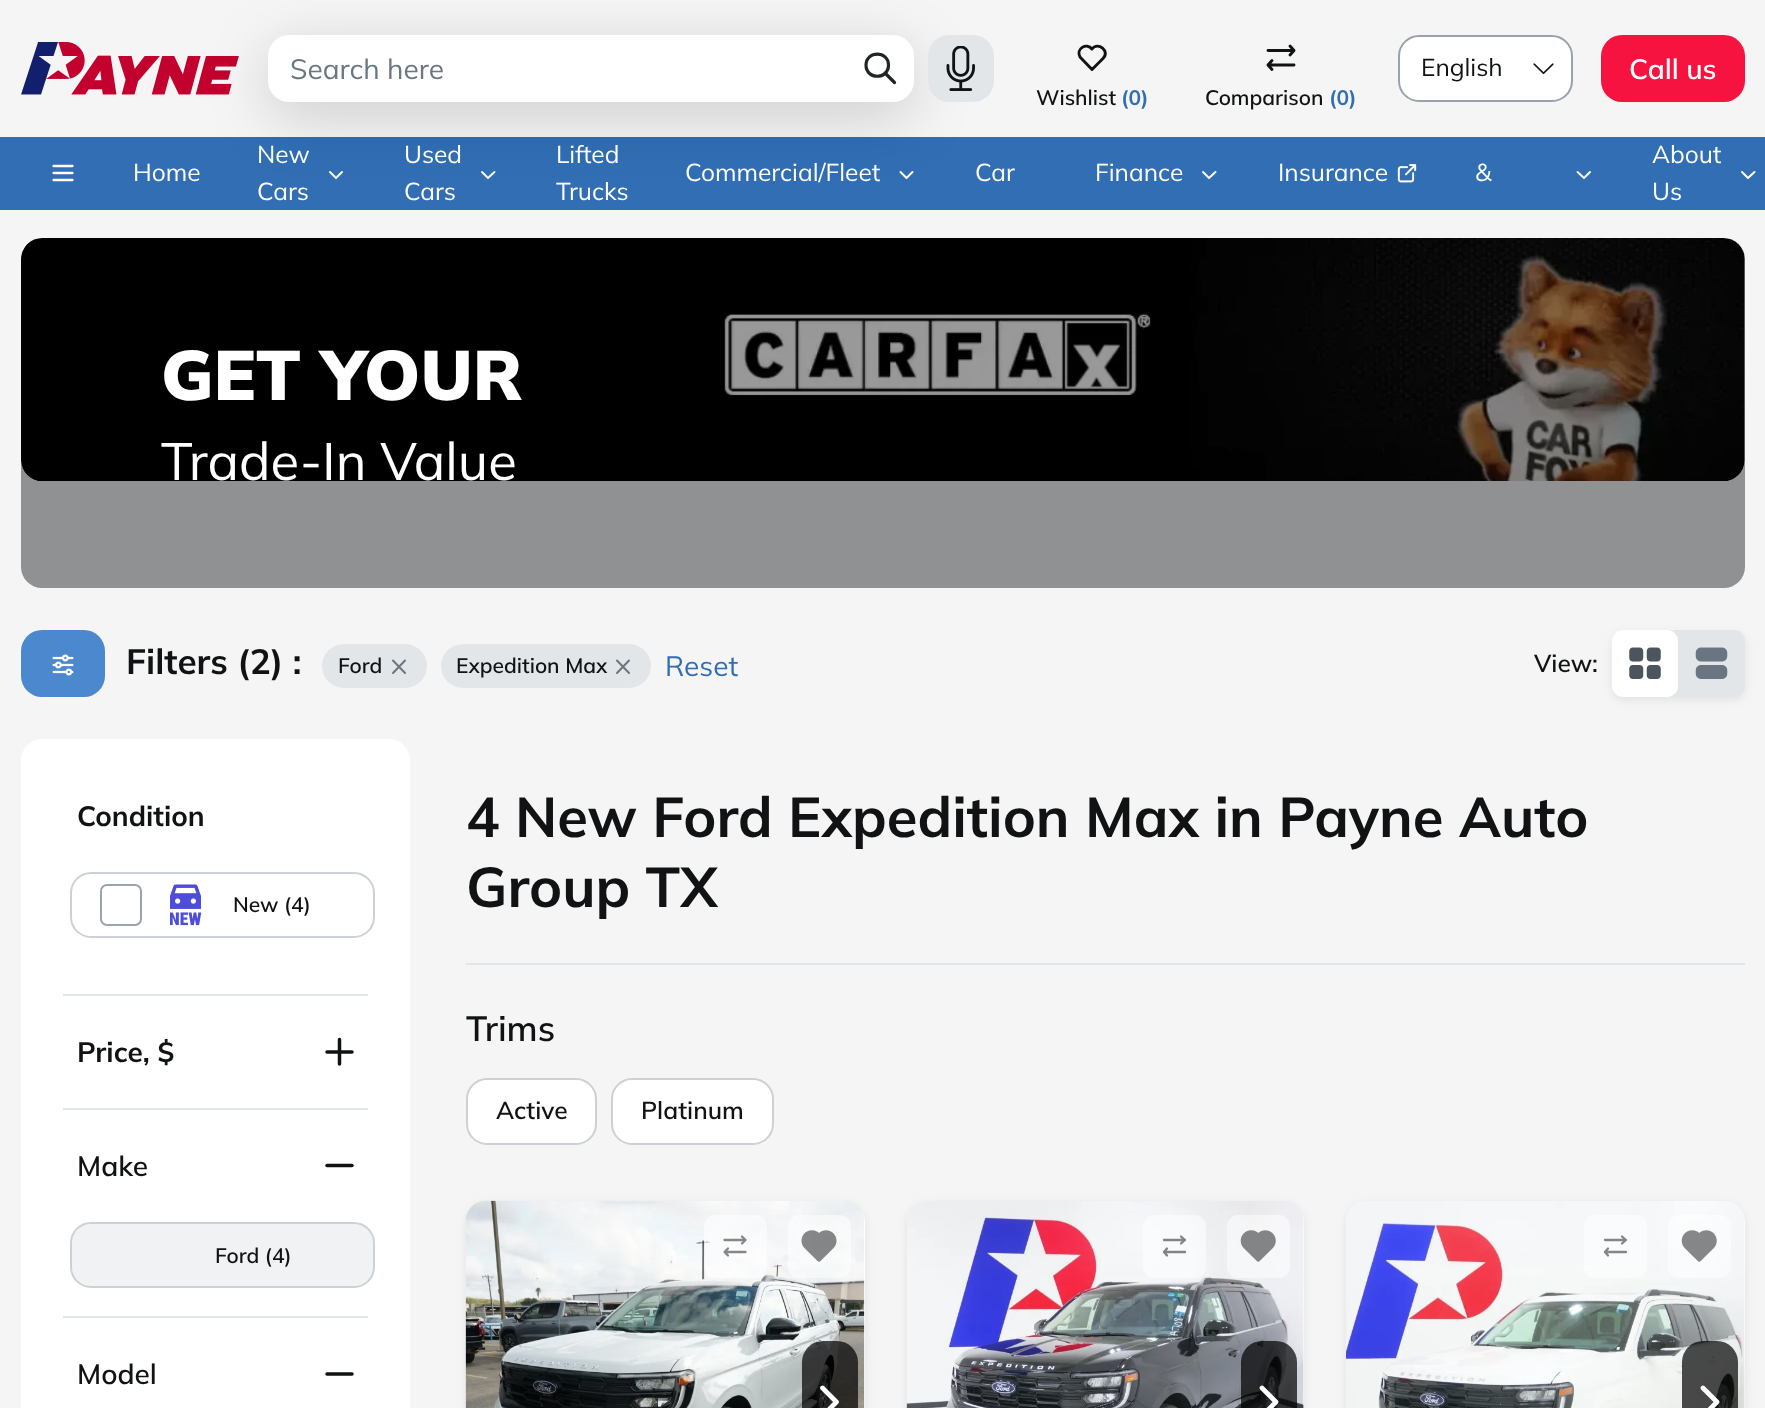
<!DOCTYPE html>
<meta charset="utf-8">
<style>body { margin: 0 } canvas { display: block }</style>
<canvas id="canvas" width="1765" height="1408"></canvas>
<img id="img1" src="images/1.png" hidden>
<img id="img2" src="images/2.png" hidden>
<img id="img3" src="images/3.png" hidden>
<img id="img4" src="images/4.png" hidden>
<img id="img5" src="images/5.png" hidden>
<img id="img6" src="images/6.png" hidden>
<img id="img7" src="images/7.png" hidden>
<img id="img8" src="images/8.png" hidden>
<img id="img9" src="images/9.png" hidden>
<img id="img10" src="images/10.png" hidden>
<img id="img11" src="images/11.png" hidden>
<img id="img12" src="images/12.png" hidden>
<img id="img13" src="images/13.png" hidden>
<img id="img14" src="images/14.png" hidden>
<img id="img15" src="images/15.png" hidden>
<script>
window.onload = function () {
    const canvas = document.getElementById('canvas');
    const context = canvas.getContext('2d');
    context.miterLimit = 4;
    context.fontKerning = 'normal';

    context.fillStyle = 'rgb(245, 245, 245)';
    context.fillRect(0, 0, 1765, 1408);
    context.drawImage(document.getElementById('img1'), 21, 42, 218, 53);
    context.fillStyle = 'rgb(49, 110, 180)';
    context.fillRect(0, 137, 1765, 73);
    context.fillStyle = 'rgba(0, 0, 0, 0.16)';
    context.filter = 'blur(30.5px)';
    context.beginPath();
    context.roundRect(268, 49, 646, 67, 21);
    context.fill();
    context.filter = 'none';
    context.fillStyle = 'rgb(255, 255, 255)';
    context.beginPath();
    context.roundRect(268, 35, 646, 67, 21);
    context.fill();
    context.beginPath();
    context.moveTo(866, 65);
    context.bezierCurveTo(866, 80, 888.5, 80, 888.5, 65);
    context.bezierCurveTo(888.5, 50.5, 866, 50.5, 866, 65);
    context.moveTo(894.5, 82.5);
    context.lineTo(885, 73);
    context.strokeStyle = 'rgb(32, 36, 39)';
    context.lineWidth = 3.2;
    context.lineCap = 'round';
    context.lineJoin = 'round';
    context.stroke();
    context.fillStyle = 'rgb(227, 230, 232)';
    context.beginPath();
    context.roundRect(928, 35, 66, 67, 21);
    context.fill();
    context.drawImage(document.getElementById('img2'), 946, 46, 29, 45);
    context.fillStyle = 'rgb(255, 255, 255)';
    context.beginPath();
    context.roundRect(1399, 36, 173, 65, 20);
    context.fill();
    context.strokeStyle = 'rgb(154, 163, 172)';
    context.lineWidth = 2;
    context.lineJoin = 'miter';
    context.stroke();
    context.drawImage(document.getElementById('img3'), 1533, 63, 21, 11);
    context.fillStyle = 'rgb(246, 19, 64)';
    context.beginPath();
    context.roundRect(1601, 35, 144, 67, 21);
    context.fill();
    context.beginPath();
    context.moveTo(1103, 58.5);
    context.lineTo(1092, 69.5);
    context.lineTo(1080, 57);
    context.bezierCurveTo(1075.5, 49, 1086.5, 42, 1092, 49);
    context.bezierCurveTo(1098, 41, 1110.5, 51.5, 1103, 58.5);
    context.strokeStyle = 'rgb(16, 18, 20)';
    context.lineWidth = 2.9;
    context.lineJoin = 'round';
    context.stroke();
    context.beginPath();
    context.moveTo(1294, 50.5);
    context.lineTo(1268, 50.5);
    context.moveTo(1290, 55);
    context.lineTo(1294, 50.5);
    context.lineTo(1290, 46);
    context.moveTo(1272, 69.5);
    context.lineTo(1268, 65);
    context.lineTo(1272, 60.5);
    context.moveTo(1268, 65);
    context.lineTo(1294, 65);
    context.stroke();
    context.beginPath();
    context.moveTo(53.5, 166);
    context.lineTo(72.5, 166);
    context.moveTo(53.5, 173);
    context.lineTo(72.5, 173);
    context.moveTo(53.5, 180);
    context.lineTo(72.5, 180);
    context.strokeStyle = 'rgb(255, 255, 255)';
    context.lineWidth = 2.3;
    context.stroke();
    context.beginPath();
    context.moveTo(330, 172);
    context.lineTo(336, 178);
    context.lineTo(342, 172);
    context.lineWidth = 2;
    context.stroke();
    context.beginPath();
    context.moveTo(482, 172);
    context.lineTo(488, 178);
    context.lineTo(494.5, 172);
    context.stroke();
    context.beginPath();
    context.moveTo(900.5, 172);
    context.lineTo(906.5, 178);
    context.lineTo(912.5, 172);
    context.stroke();
    context.beginPath();
    context.moveTo(1203, 172);
    context.lineTo(1209, 178);
    context.lineTo(1215.5, 172);
    context.stroke();
    context.drawImage(document.getElementById('img4'), 1397, 164, 20, 19);
    context.beginPath();
    context.moveTo(1577.5, 172);
    context.lineTo(1584, 178);
    context.lineTo(1590, 172);
    context.stroke();
    context.beginPath();
    context.moveTo(1742, 172);
    context.lineTo(1748, 178);
    context.lineTo(1754.5, 172);
    context.stroke();
    context.fillStyle = 'rgb(241, 242, 244)';
    context.beginPath();
    context.roundRect(21, 238, 1724, 350, 21);
    context.fill();
    context.drawImage(document.getElementById('img5'), 21, 238, 1724, 243);
    context.fillStyle = 'rgba(0, 0, 0, 0.4)';
    context.beginPath();
    context.roundRect(21, 238, 1724, 350, 21);
    context.fill();
    context.fillStyle = 'rgb(75, 136, 206)';
    context.beginPath();
    context.roundRect(21, 630, 84, 67, 21);
    context.fill();
    context.drawImage(document.getElementById('img6'), 52, 654, 22, 22);
    context.fillStyle = 'rgb(227, 230, 232)';
    context.beginPath();
    context.roundRect(322, 644, 105, 44, 22);
    context.fill();
    context.beginPath();
    context.moveTo(405, 660.5);
    context.lineTo(393, 673);
    context.moveTo(393, 660.5);
    context.lineTo(405, 673);
    context.strokeStyle = 'rgb(106, 118, 129)';
    context.stroke();
    context.beginPath();
    context.roundRect(441, 644, 210, 44, 22);
    context.fill();
    context.beginPath();
    context.moveTo(629, 660.5);
    context.lineTo(617, 673);
    context.moveTo(617, 660.5);
    context.lineTo(629, 673);
    context.stroke();
    context.fillStyle = 'rgba(0, 0, 0, 0.08)';
    context.filter = 'blur(5px)';
    context.beginPath();
    context.roundRect(1612, 634, 133, 66, 11);
    context.fill();
    context.filter = 'none';
    context.fillStyle = 'rgb(227, 230, 232)';
    context.beginPath();
    context.roundRect(1612, 630, 133, 67, 11);
    context.fill();
    context.fillStyle = 'rgb(255, 255, 255)';
    context.beginPath();
    context.roundRect(1612, 630, 66, 67, 11);
    context.fill();
    context.drawImage(document.getElementById('img7'), 1629, 647, 32, 32);
    context.drawImage(document.getElementById('img8'), 1695, 647, 33, 32);
    context.beginPath();
    context.roundRect(21, 739, 389, 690, 21);
    context.fill();
    context.fillStyle = 'rgb(227, 230, 232)';
    context.fillRect(63, 994, 305, 2);
    context.beginPath();
    context.roundRect(71, 873, 303, 64, 20);
    context.strokeStyle = 'rgb(205, 209, 214)';
    context.lineJoin = 'miter';
    context.stroke();
    context.beginPath();
    context.roundRect(101, 885, 40, 40, 6);
    context.strokeStyle = 'rgb(154, 164, 172)';
    context.stroke();
    context.drawImage(document.getElementById('img9'), 170, 884, 31, 42);
    context.fillRect(63, 1108, 305, 2);
    context.beginPath();
    context.moveTo(339.5, 1039.5);
    context.lineTo(339.5, 1064);
    context.moveTo(327, 1052);
    context.lineTo(352, 1052);
    context.strokeStyle = 'rgb(16, 18, 20)';
    context.lineWidth = 3.5;
    context.lineJoin = 'round';
    context.stroke();
    context.fillRect(63, 1316, 305, 2);
    context.beginPath();
    context.moveTo(327, 1165.5);
    context.lineTo(352, 1165.5);
    context.stroke();
    context.fillStyle = 'rgb(241, 242, 244)';
    context.beginPath();
    context.roundRect(71, 1223, 303, 64, 20);
    context.fill();
    context.strokeStyle = 'rgb(205, 209, 214)';
    context.lineWidth = 2;
    context.lineJoin = 'miter';
    context.stroke();
    context.beginPath();
    context.moveTo(327, 1374);
    context.lineTo(352, 1374);
    context.strokeStyle = 'rgb(16, 18, 20)';
    context.lineWidth = 3.5;
    context.lineJoin = 'round';
    context.stroke();
    context.fillStyle = 'rgb(227, 230, 232)';
    context.fillRect(466, 963, 1279, 2);
    context.fillStyle = 'rgb(255, 255, 255)';
    context.beginPath();
    context.roundRect(467, 1079, 129, 65, 20);
    context.fill();
    context.strokeStyle = 'rgb(205, 209, 214)';
    context.lineWidth = 2;
    context.lineJoin = 'miter';
    context.stroke();
    context.beginPath();
    context.roundRect(612, 1079, 161, 65, 20);
    context.fill();
    context.stroke();
    context.fillStyle = 'rgba(0, 0, 0, 0.08)';
    context.filter = 'blur(5px)';
    context.beginPath();
    context.roundRect(466, 1204, 399, 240, 21);
    context.fill();
    context.filter = 'none';
    context.fillStyle = 'rgb(255, 255, 255)';
    context.beginPath();
    context.roundRect(466, 1201, 399, 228, 21);
    context.fill();
    context.drawImage(document.getElementById('img10'), 465, 1200, 400, 208);
    context.fillStyle = 'rgba(0, 0, 0, 0.7)';
    context.beginPath();
    context.roundRect(802, 1341, 56, 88, 21);
    context.fill();
    context.beginPath();
    context.moveTo(822.5, 1388);
    context.lineTo(836.5, 1402);
    context.lineTo(822.5, 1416);
    context.strokeStyle = 'rgb(255, 255, 255)';
    context.lineWidth = 4.7;
    context.lineJoin = 'round';
    context.stroke();
    context.fillStyle = 'rgba(255, 255, 255, 0.5)';
    context.beginPath();
    context.roundRect(704, 1215, 63, 63, 11);
    context.fill();
    context.beginPath();
    context.moveTo(745.5, 1240);
    context.lineTo(724.5, 1240);
    context.moveTo(742, 1243.5);
    context.lineTo(745.5, 1240);
    context.lineTo(742, 1236.5);
    context.moveTo(728, 1255.5);
    context.lineTo(724.5, 1252);
    context.lineTo(728, 1248.5);
    context.moveTo(724.5, 1252);
    context.lineTo(745.5, 1252);
    context.strokeStyle = 'rgba(16, 18, 20, 0.5)';
    context.lineWidth = 2.3;
    context.stroke();
    context.beginPath();
    context.roundRect(788, 1215, 63, 63, 11);
    context.fill();
    context.drawImage(document.getElementById('img11'), 801, 1230, 36, 32);
    context.fillStyle = 'rgba(0, 0, 0, 0.08)';
    context.filter = 'blur(5px)';
    context.beginPath();
    context.roundRect(907, 1204, 397, 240, 21);
    context.fill();
    context.filter = 'none';
    context.fillStyle = 'rgb(255, 255, 255)';
    context.beginPath();
    context.roundRect(907, 1201, 397, 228, 21);
    context.fill();
    context.drawImage(document.getElementById('img12'), 906, 1201, 398, 207);
    context.fillStyle = 'rgba(0, 0, 0, 0.7)';
    context.beginPath();
    context.roundRect(1241, 1341, 56, 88, 21);
    context.fill();
    context.beginPath();
    context.moveTo(1262, 1388);
    context.lineTo(1276, 1402);
    context.lineTo(1262, 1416);
    context.strokeStyle = 'rgb(255, 255, 255)';
    context.lineWidth = 4.7;
    context.stroke();
    context.fillStyle = 'rgba(255, 255, 255, 0.5)';
    context.beginPath();
    context.roundRect(1143, 1215, 63, 63, 11);
    context.fill();
    context.beginPath();
    context.moveTo(1185, 1240);
    context.lineTo(1164, 1240);
    context.moveTo(1181, 1243.5);
    context.lineTo(1185, 1240);
    context.lineTo(1181, 1236.5);
    context.moveTo(1167, 1255.5);
    context.lineTo(1164, 1252);
    context.lineTo(1167, 1248.5);
    context.moveTo(1164, 1252);
    context.lineTo(1185, 1252);
    context.strokeStyle = 'rgb(129, 131, 133)';
    context.lineWidth = 2.3;
    context.stroke();
    context.beginPath();
    context.roundRect(1227, 1215, 63, 63, 11);
    context.fill();
    context.drawImage(document.getElementById('img13'), 1240, 1230, 36, 32);
    context.fillStyle = 'rgba(0, 0, 0, 0.08)';
    context.filter = 'blur(5px)';
    context.beginPath();
    context.roundRect(1346, 1204, 399, 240, 21);
    context.fill();
    context.filter = 'none';
    context.fillStyle = 'rgb(255, 255, 255)';
    context.beginPath();
    context.roundRect(1346, 1201, 399, 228, 21);
    context.fill();
    context.drawImage(document.getElementById('img14'), 1346, 1201, 399, 207);
    context.fillStyle = 'rgba(0, 0, 0, 0.7)';
    context.beginPath();
    context.roundRect(1682, 1341, 56, 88, 21);
    context.fill();
    context.beginPath();
    context.moveTo(1703, 1388);
    context.lineTo(1717, 1402);
    context.lineTo(1703, 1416);
    context.strokeStyle = 'rgb(255, 255, 255)';
    context.lineWidth = 4.7;
    context.stroke();
    context.fillStyle = 'rgba(255, 255, 255, 0.5)';
    context.beginPath();
    context.roundRect(1584, 1215, 63, 63, 11);
    context.fill();
    context.beginPath();
    context.moveTo(1626, 1240);
    context.lineTo(1605, 1240);
    context.moveTo(1622, 1243.5);
    context.lineTo(1626, 1240);
    context.lineTo(1622, 1236.5);
    context.moveTo(1608, 1255.5);
    context.lineTo(1605, 1252);
    context.lineTo(1608, 1248.5);
    context.moveTo(1605, 1252);
    context.lineTo(1626, 1252);
    context.strokeStyle = 'rgb(131, 133, 135)';
    context.lineWidth = 2.3;
    context.stroke();
    context.beginPath();
    context.roundRect(1668, 1215, 63, 63, 11);
    context.fill();
    context.drawImage(document.getElementById('img15'), 1681, 1230, 36, 32);
    context.font = '28px Mulish';
    context.fillStyle = 'rgb(106, 118, 129)';
    context.fillText('Search here', 290, 79);
    context.font = '24.5px Mulish';
    context.fillStyle = 'rgb(16, 18, 20)';
    context.fillText('English', 1421, 76);
    context.font = '600 28px Mulish';
    context.fillStyle = 'rgb(255, 255, 255)';
    context.fillText('Call us', 1629, 79);
    context.font = '600 21px Mulish';
    context.fillStyle = 'rgb(16, 18, 20)';
    context.fillText('Wishlist', 1036, 105);
    context.font = 'bold 21px Mulish';
    context.fillStyle = 'rgb(49, 110, 180)';
    context.fillText('(0)', 1121, 105);
    context.font = '600 21px Mulish';
    context.fillStyle = 'rgb(16, 18, 20)';
    context.fillText('Comparison', 1205, 105);
    context.font = 'bold 21px Mulish';
    context.fillStyle = 'rgb(49, 110, 180)';
    context.fillText('(0)', 1329, 105);
    context.font = '24.5px Mulish';
    context.fillStyle = 'rgb(255, 255, 255)';
    context.fillText('Home', 133, 181);
    context.fillText('New', 257, 163);
    context.fillText('Cars', 257, 200);
    context.fillText('Used', 404, 163);
    context.fillText('Cars', 404, 200);
    context.fillText('Lifted', 556, 163);
    context.fillText('Trucks', 556, 200);
    context.fillText('Commercial/Fleet', 685, 181);
    context.fillText('Car', 975, 181);
    context.fillText('Finance', 1095, 181);
    context.fillText('Insurance', 1278, 181);
    context.fillText('&', 1475, 181);
    context.fillText('About', 1652, 163);
    context.fillText('Us', 1652, 200);
    context.font = '900 70px Mulish';
    context.fillText('GET YOUR', 161, 400);
    context.font = '52.5px Mulish';
    context.fillText('Trade-In Value', 161, 480);
    context.font = 'bold 35px Mulish';
    context.fillStyle = 'rgb(16, 18, 20)';
    context.fillText('Filters (2) :', 126, 674);
    context.font = '600 21px Mulish';
    context.fillText('Ford', 338, 673);
    context.fillText('Expedition Max', 456, 673);
    context.font = '28px Mulish';
    context.fillStyle = 'rgb(49, 110, 180)';
    context.fillText('Reset', 665, 676);
    context.font = '600 24.5px Mulish';
    context.fillStyle = 'rgb(16, 18, 20)';
    context.fillText('View:', 1534, 672);
    context.font = 'bold 28px Mulish';
    context.fillText('Condition', 77, 826);
    context.font = '600 21px Mulish';
    context.fillText('New (4)', 233, 912);
    context.font = 'bold 28px Mulish';
    context.fillText('Price, $', 77, 1062);
    context.font = '600 28px Mulish';
    context.fillText('Make', 77, 1176);
    context.font = '600 21px Mulish';
    context.fillText('Ford (4)', 215, 1263);
    context.font = '600 28px Mulish';
    context.fillText('Model', 77, 1384);
    context.font = 'bold 56px Mulish';
    context.fillText('4 New Ford Expedition Max in Payne Auto', 466, 837);
    context.fillText('Group TX', 466, 907);
    context.font = '600 35px Mulish';
    context.fillText('Trims', 466, 1041);
    context.font = '600 24.5px Mulish';
    context.fillText('Active', 496, 1119);
    context.fillText('Platinum', 641, 1119);
};
</script>
